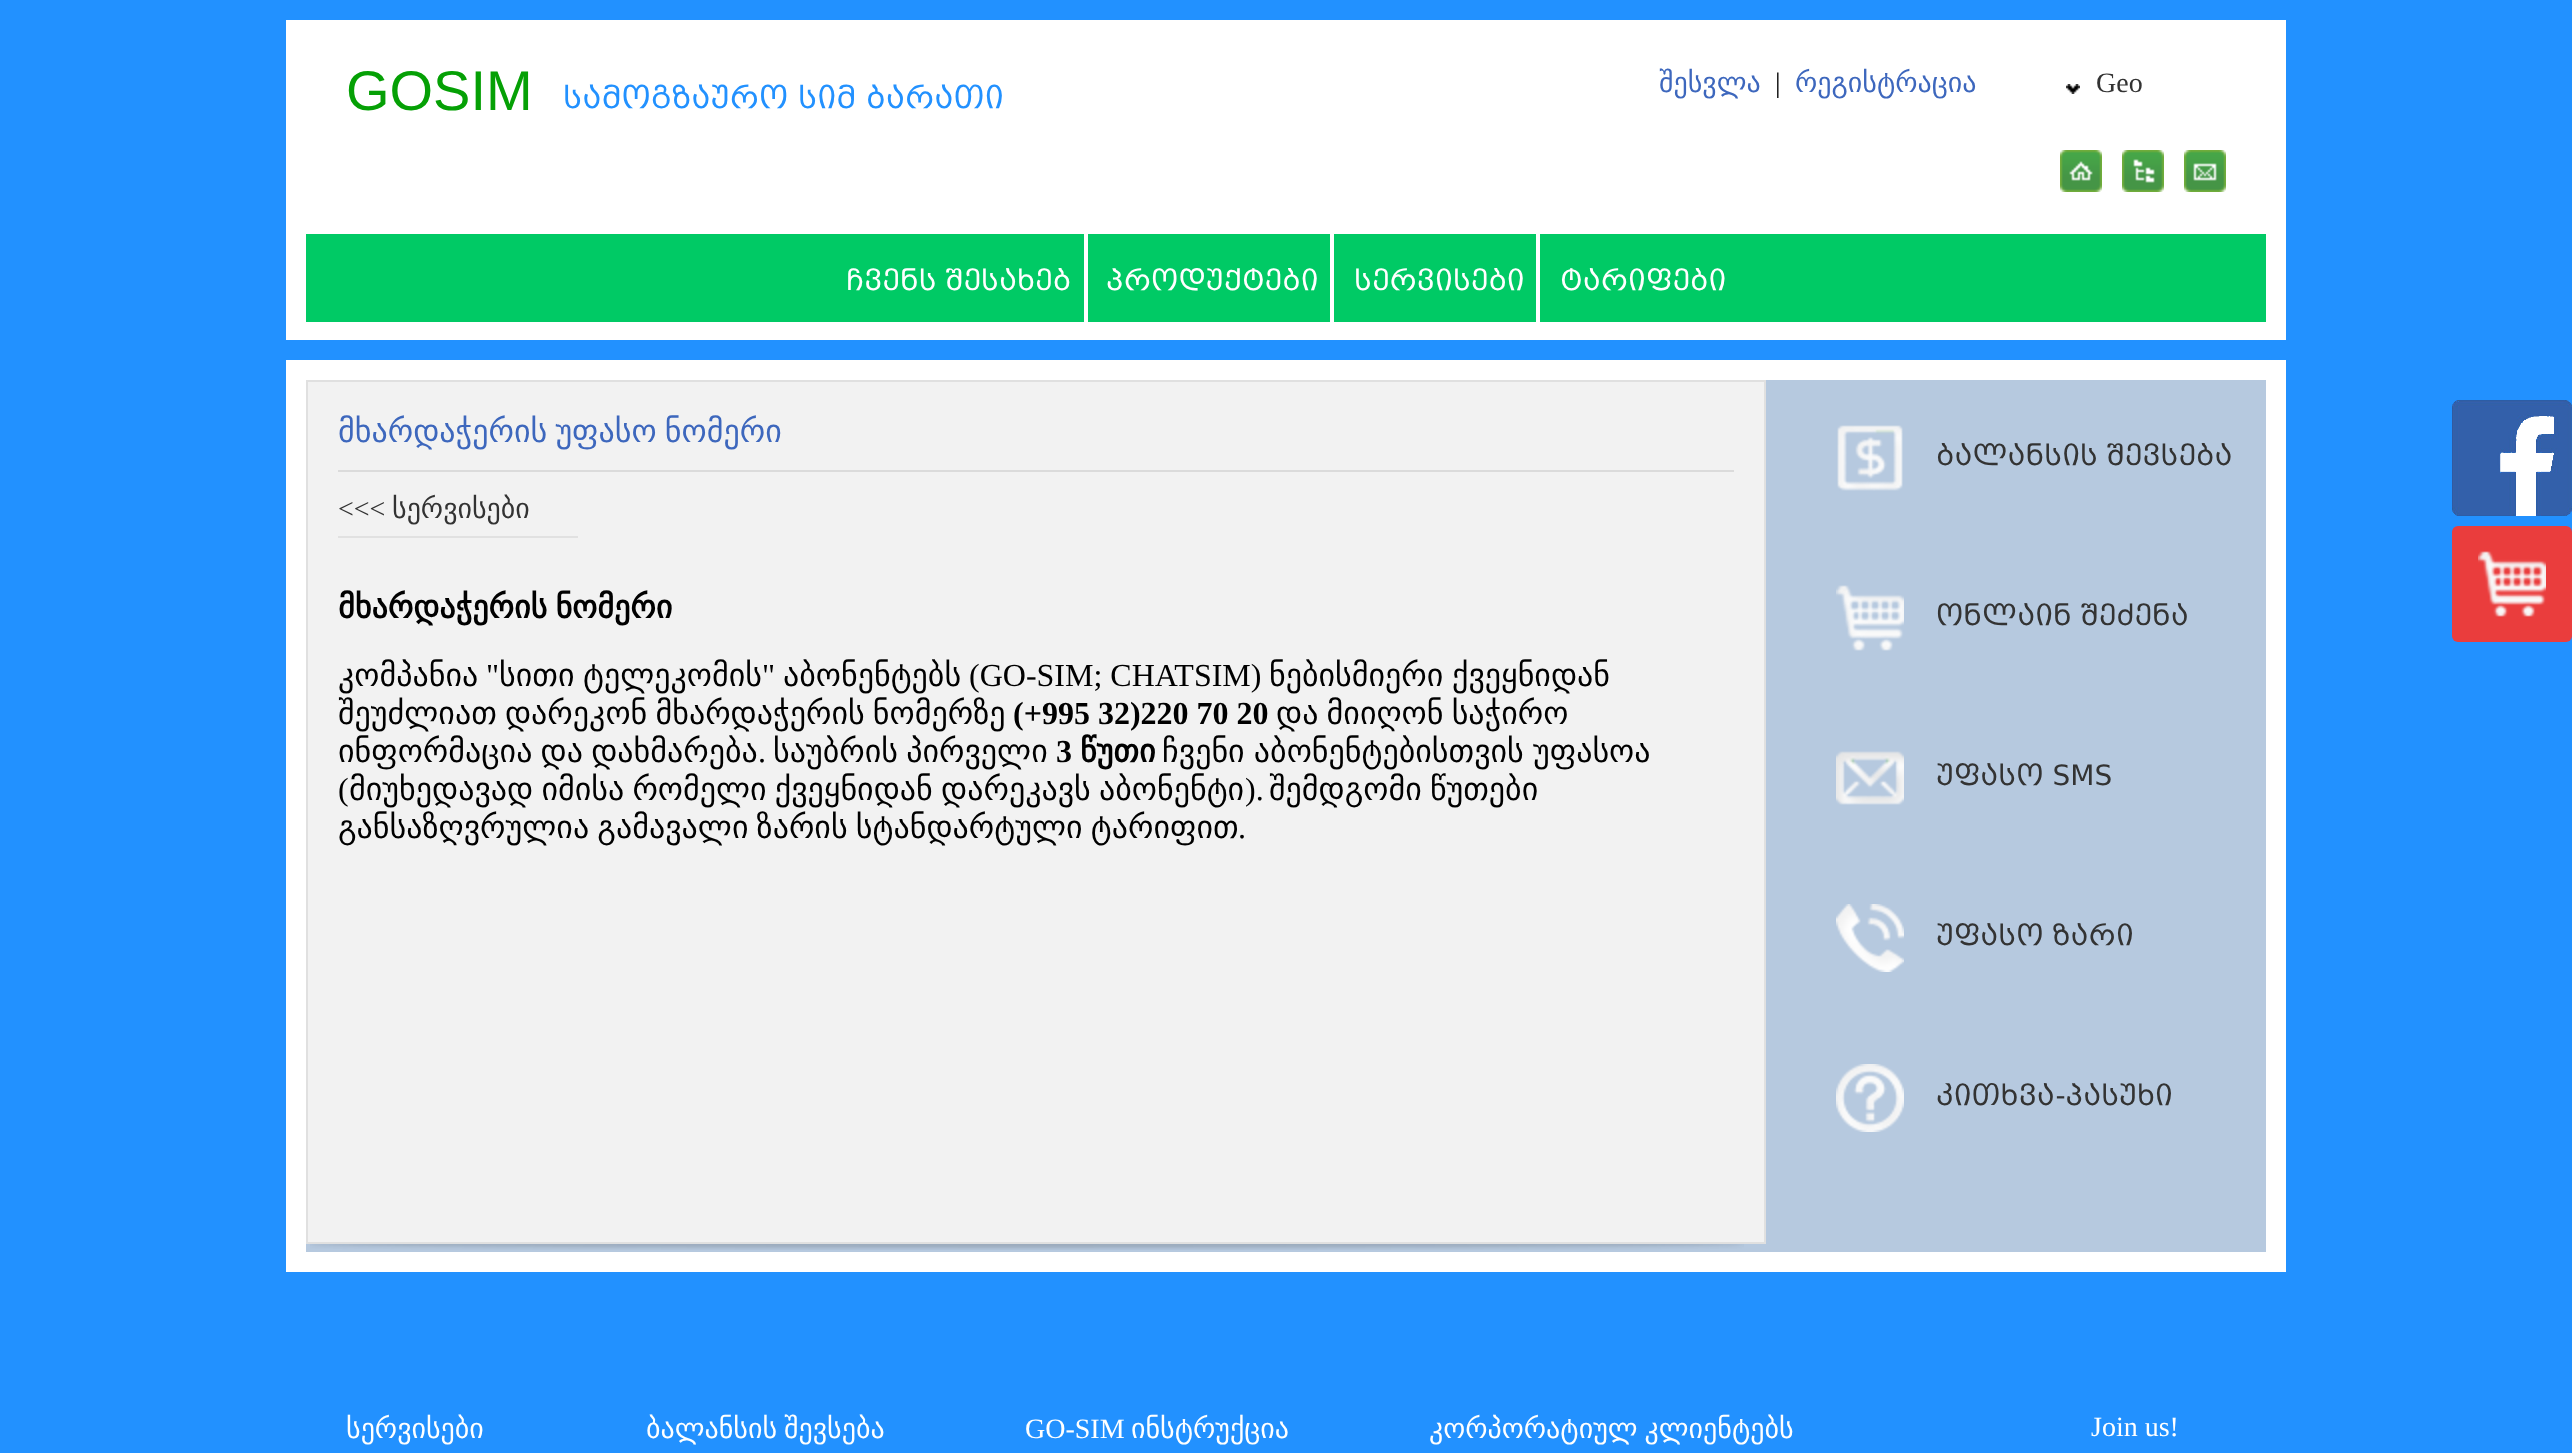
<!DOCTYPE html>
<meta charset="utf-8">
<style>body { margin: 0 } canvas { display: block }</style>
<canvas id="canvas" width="2572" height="1453"></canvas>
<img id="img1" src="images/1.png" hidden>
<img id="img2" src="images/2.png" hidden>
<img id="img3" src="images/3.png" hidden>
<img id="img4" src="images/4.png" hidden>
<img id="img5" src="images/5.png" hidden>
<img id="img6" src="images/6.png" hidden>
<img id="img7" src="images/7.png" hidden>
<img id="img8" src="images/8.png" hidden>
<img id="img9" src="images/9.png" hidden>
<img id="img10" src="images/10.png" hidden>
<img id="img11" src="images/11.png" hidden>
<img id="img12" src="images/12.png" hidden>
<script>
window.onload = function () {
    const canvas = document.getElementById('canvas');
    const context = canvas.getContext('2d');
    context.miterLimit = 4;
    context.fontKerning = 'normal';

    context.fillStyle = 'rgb(34, 145, 255)';
    context.fillRect(0, 0, 2572, 1453);
    context.fillStyle = 'rgb(255, 255, 255)';
    context.fillRect(286, 20, 2000, 320);
    context.drawImage(document.getElementById('img1'), 2066, 84, 14, 10);
    context.drawImage(document.getElementById('img2'), 2060, 150, 42, 42);
    context.drawImage(document.getElementById('img3'), 2122, 150, 42, 42);
    context.drawImage(document.getElementById('img4'), 2184, 150, 42, 42);
    context.fillStyle = 'rgb(0, 202, 101)';
    context.fillRect(306, 234, 1960, 88);
    context.fillStyle = 'rgb(255, 255, 255)';
    context.fillRect(1084, 234, 4, 88);
    context.fillRect(1330, 234, 4, 88);
    context.fillRect(1536, 234, 4, 88);
    context.fillRect(286, 360, 2000, 912);
    context.fillStyle = 'rgb(182, 201, 223)';
    context.fillRect(306, 380, 1960, 872);
    context.drawImage(document.getElementById('img5'), 310, 1244, 1434, 6);
    context.fillStyle = 'rgb(242, 242, 242)';
    context.beginPath();
    context.rect(307, 381, 1458, 862);
    context.fill();
    context.strokeStyle = 'rgb(224, 224, 224)';
    context.lineWidth = 2;
    context.stroke();
    context.fillStyle = 'rgb(219, 219, 219)';
    context.fillRect(338, 470, 1396, 2);
    context.fillStyle = 'rgb(225, 225, 225)';
    context.fillRect(338, 536, 240, 2);
    context.drawImage(document.getElementById('img6'), 1837, 425, 66, 66);
    context.drawImage(document.getElementById('img7'), 1836, 585, 68, 66);
    context.drawImage(document.getElementById('img8'), 1836, 751, 68, 54);
    context.drawImage(document.getElementById('img9'), 1836, 904, 68, 68);
    context.drawImage(document.getElementById('img10'), 1836, 1064, 68, 68);
    context.drawImage(document.getElementById('img11'), 2452, 400, 120, 116);
    context.fillStyle = 'rgb(234, 61, 61)';
    context.beginPath();
    context.roundRect(2452, 526, 120, 116, 6);
    context.fill();
    context.drawImage(document.getElementById('img12'), 2478, 551, 68, 66);
    context.font = '56px Liberation Sans';
    context.fillStyle = 'rgb(5, 160, 5)';
    context.fillText('GOSIM', 346, 110);
    context.font = '30px "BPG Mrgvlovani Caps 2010"';
    context.fillStyle = 'rgb(34, 145, 255)';
    context.fillText('სამოგზაურო სიმ ბარათი', 563, 108);
    context.font = '28px DejaVu Sans';
    context.fillStyle = 'rgb(61, 103, 189)';
    context.fillText('შესვლა', 1659, 92);
    context.font = '28px Liberation Serif';
    context.fillStyle = 'rgb(0, 0, 0)';
    context.fillText('|', 1775, 92);
    context.font = '28px DejaVu Sans';
    context.fillStyle = 'rgb(61, 103, 189)';
    context.fillText('რეგისტრაცია', 1795, 92);
    context.font = '28px Liberation Serif';
    context.fillStyle = 'rgb(51, 51, 51)';
    context.fillText('Geo', 2096, 92);
    context.font = '28px "BPG Mrgvlovani Caps 2010"';
    context.fillStyle = 'rgb(255, 255, 255)';
    context.fillText('ჩვენს შესახებ', 846, 290);
    context.fillText('პროდუქტები', 1106, 290);
    context.fillText('სერვისები', 1354, 290);
    context.fillText('ტარიფები', 1560, 290);
    context.wordSpacing = '-2px';
    context.font = '32px DejaVu Sans';
    context.fillStyle = 'rgb(61, 103, 189)';
    context.fillText('მხარდაჭერის უფასო ნომერი', 338, 442);
    context.wordSpacing = '0px';
    context.font = '28px Liberation Serif';
    context.fillStyle = 'rgb(51, 51, 51)';
    context.fillText('<<<', 338, 518);
    context.font = '28px DejaVu Sans';
    context.fillText('სერვისები', 392, 518);
    context.wordSpacing = '-2px';
    context.font = 'bold 32px DejaVu Sans';
    context.fillStyle = 'rgb(0, 0, 0)';
    context.fillText('მხარდაჭერის ნომერი', 338, 618);
    context.wordSpacing = '0px';
    context.font = '32px DejaVu Sans';
    context.fillText('კომპანია', 338, 686);
    context.font = '32px Liberation Serif';
    context.fillText('"', 486, 686);
    context.font = '32px DejaVu Sans';
    context.fillText('სითი', 499, 686);
    context.fillText('ტელეკომის', 583, 686);
    context.font = '32px Liberation Serif';
    context.fillText('"', 762, 686);
    context.font = '32px DejaVu Sans';
    context.fillText('აბონენტებს', 783, 686);
    context.font = '32px Liberation Serif';
    context.fillText('(GO-SIM; CHATSIM)', 969, 686);
    context.font = '32px DejaVu Sans';
    context.fillText('ნებისმიერი', 1269, 686);
    context.fillText('ქვეყნიდან', 1452, 686);
    context.wordSpacing = '-2px';
    context.fillText('შეუძლიათ დარეკონ მხარდაჭერის ნომერზე', 338, 724);
    context.wordSpacing = '0px';
    context.font = 'bold 32px Liberation Serif';
    context.fillText('(+995 32)220 70 20', 1013, 724);
    context.wordSpacing = '-2px';
    context.font = '32px DejaVu Sans';
    context.fillText('და მიიღონ საჭირო', 1276, 724);
    context.fillText('ინფორმაცია და დახმარება', 338, 762);
    context.wordSpacing = '0px';
    context.font = '32px Liberation Serif';
    context.fillText('.', 758, 762);
    context.wordSpacing = '-2px';
    context.font = '32px DejaVu Sans';
    context.fillText('საუბრის პირველი', 773, 762);
    context.wordSpacing = '0px';
    context.font = 'bold 32px Liberation Serif';
    context.fillText('3', 1056, 762);
    context.font = 'bold 32px DejaVu Sans';
    context.fillText('წუთი', 1080, 762);
    context.wordSpacing = '-1px';
    context.font = '32px DejaVu Sans';
    context.fillText('ჩვენი აბონენტებისთვის უფასოა', 1162, 762);
    context.wordSpacing = '0px';
    context.font = '32px Liberation Serif';
    context.fillText('(', 338, 800);
    context.wordSpacing = '-2px';
    context.font = '32px DejaVu Sans';
    context.fillText('მიუხედავად იმისა რომელი ქვეყნიდან დარეკავს აბონენტი', 349, 800);
    context.wordSpacing = '0px';
    context.font = '32px Liberation Serif';
    context.fillText(').', 1245, 800);
    context.wordSpacing = '-2px';
    context.font = '32px DejaVu Sans';
    context.fillText('შემდგომი წუთები', 1269, 800);
    context.fillText('განსაზღვრულია გამავალი ზარის სტანდარტული ტარიფით', 338, 838);
    context.wordSpacing = '0px';
    context.font = '32px Liberation Serif';
    context.fillText('.', 1238, 838);
    context.font = '28px "BPG Mrgvlovani Caps 2010"';
    context.fillStyle = 'rgb(51, 51, 51)';
    context.fillText('ბალანსის შევსება', 1936, 465);
    context.fillText('ონლაინ შეძენა', 1936, 625);
    context.fillText('უფასო SMS', 1936, 785);
    context.fillText('უფასო ზარი', 1936, 945);
    context.fillText('კითხვა-პასუხი', 1936, 1105);
    context.font = '28px DejaVu Sans';
    context.fillStyle = 'rgb(255, 255, 255)';
    context.fillText('სერვისები', 346, 1438);
    context.wordSpacing = '-2px';
    context.fillText('ბალანსის შევსება', 646, 1438);
    context.wordSpacing = '0px';
    context.font = '28px Liberation Serif';
    context.fillText('GO-SIM', 1025, 1438);
    context.font = '28px DejaVu Sans';
    context.fillText('ინსტრუქცია', 1131, 1438);
    context.wordSpacing = '-2px';
    context.fillText('კორპორატიულ კლიენტებს', 1429, 1438);
    context.wordSpacing = '0px';
    context.font = '28px Liberation Serif';
    context.fillText('Join us!', 2091, 1436);
};
</script>
